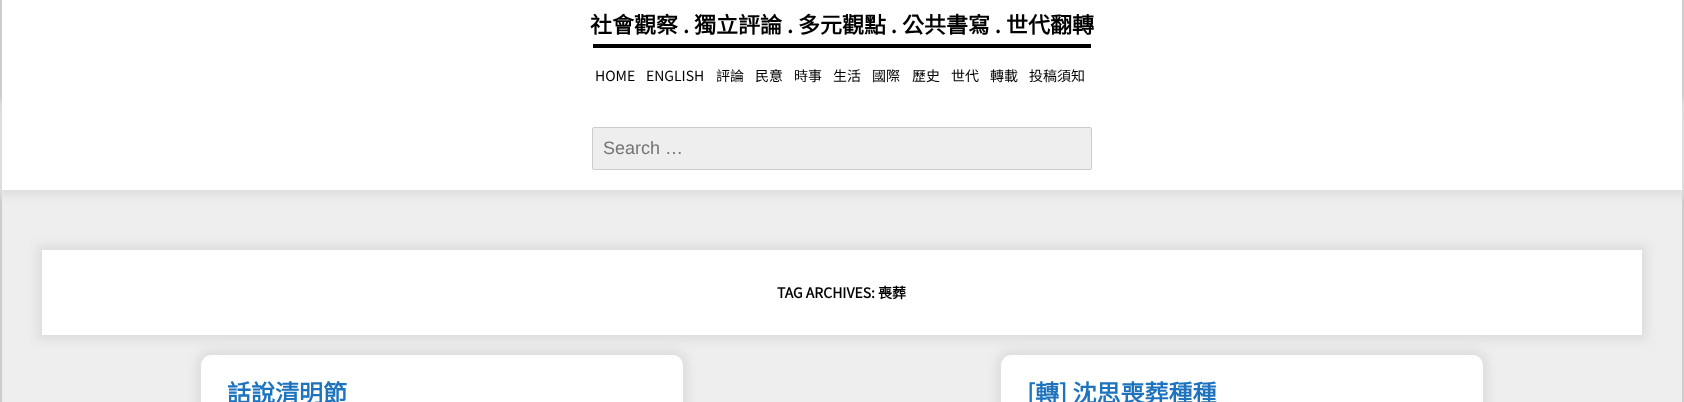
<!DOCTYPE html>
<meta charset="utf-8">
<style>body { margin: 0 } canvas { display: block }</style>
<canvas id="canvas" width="1684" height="402"></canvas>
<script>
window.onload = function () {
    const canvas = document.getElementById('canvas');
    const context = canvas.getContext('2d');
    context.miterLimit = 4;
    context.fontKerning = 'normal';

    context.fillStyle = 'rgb(204, 204, 204)';
    context.fillRect(0, 0, 1684, 402);
    context.fillStyle = 'rgb(255, 255, 255)';
    context.fillRect(2, 0, 1680, 44);
    context.fillStyle = 'rgb(221, 221, 221)';
    context.filter = 'blur(5px)';
    context.beginPath();
    context.rect(-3, 102, 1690, 93);
    context.fill();
    context.filter = 'none';
    context.fillStyle = 'rgb(238, 238, 238)';
    context.fillRect(2, 190, 1680, 212);
    context.fillStyle = 'rgb(221, 221, 221)';
    context.filter = 'blur(5px)';
    context.beginPath();
    context.rect(-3, 102, 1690, 93);
    context.fill();
    context.filter = 'none';
    context.fillStyle = 'rgb(255, 255, 255)';
    context.fillRect(2, 44, 1680, 146);
    context.fillStyle = 'rgb(0, 0, 0)';
    context.fillRect(593, 44, 498, 4);
    context.fillStyle = 'rgb(238, 238, 238)';
    context.beginPath();
    context.roundRect(592.5, 127.5, 499, 42, 1.5);
    context.fill();
    context.strokeStyle = 'rgb(204, 204, 204)';
    context.stroke();
    context.fillStyle = 'rgb(221, 221, 221)';
    context.filter = 'blur(5px)';
    context.beginPath();
    context.rect(37, 245, 1610, 95);
    context.fill();
    context.filter = 'none';
    context.fillStyle = 'rgb(255, 255, 255)';
    context.fillRect(42, 250, 1600, 85);
    context.fillStyle = 'rgb(221, 221, 221)';
    context.filter = 'blur(5px)';
    context.beginPath();
    context.roundRect(196, 350, 492, 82, 15);
    context.fill();
    context.filter = 'none';
    context.fillStyle = 'rgb(255, 255, 255)';
    context.beginPath();
    context.roundRect(201, 355, 482, 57, 10);
    context.fill();
    context.fillStyle = 'rgb(221, 221, 221)';
    context.filter = 'blur(5px)';
    context.beginPath();
    context.roundRect(996, 350, 492, 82, 15);
    context.fill();
    context.filter = 'none';
    context.fillStyle = 'rgb(255, 255, 255)';
    context.beginPath();
    context.roundRect(1001, 355, 482, 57, 10);
    context.fill();
    context.font = 'bold 22px Noto Sans TC';
    context.fillStyle = 'rgb(0, 0, 0)';
    context.fillText('社會觀察 . 獨立評論 . 多元觀點 . 公共書寫 . 世代翻轉', 590, 33);
    context.font = '14px Noto Sans TC';
    context.fillText('HOME', 595, 81);
    context.fillText('ENGLISH', 646, 81);
    context.fillText('評論', 716, 81);
    context.fillText('民意', 755, 81);
    context.fillText('時事', 794, 81);
    context.fillText('生活', 833, 81);
    context.fillText('國際', 872, 81);
    context.fillText('歷史', 912, 81);
    context.fillText('世代', 951, 81);
    context.fillText('轉載', 990, 81);
    context.fillText('投稿須知', 1029, 81);
    context.font = '18px Liberation Sans';
    context.fillStyle = 'rgb(117, 117, 117)';
    context.fillText('Search …', 603, 154);
    context.font = 'bold 14px Noto Sans TC';
    context.fillStyle = 'rgb(0, 0, 0)';
    context.fillText('TAG ARCHIVES: 喪葬', 777, 298);
    context.font = 'bold 24px Noto Sans TC';
    context.fillStyle = 'rgb(30, 115, 190)';
    context.fillText('話說清明節', 227, 402);
    context.fillText('[轉] 沈思喪葬種種', 1027, 402);
};
</script>
